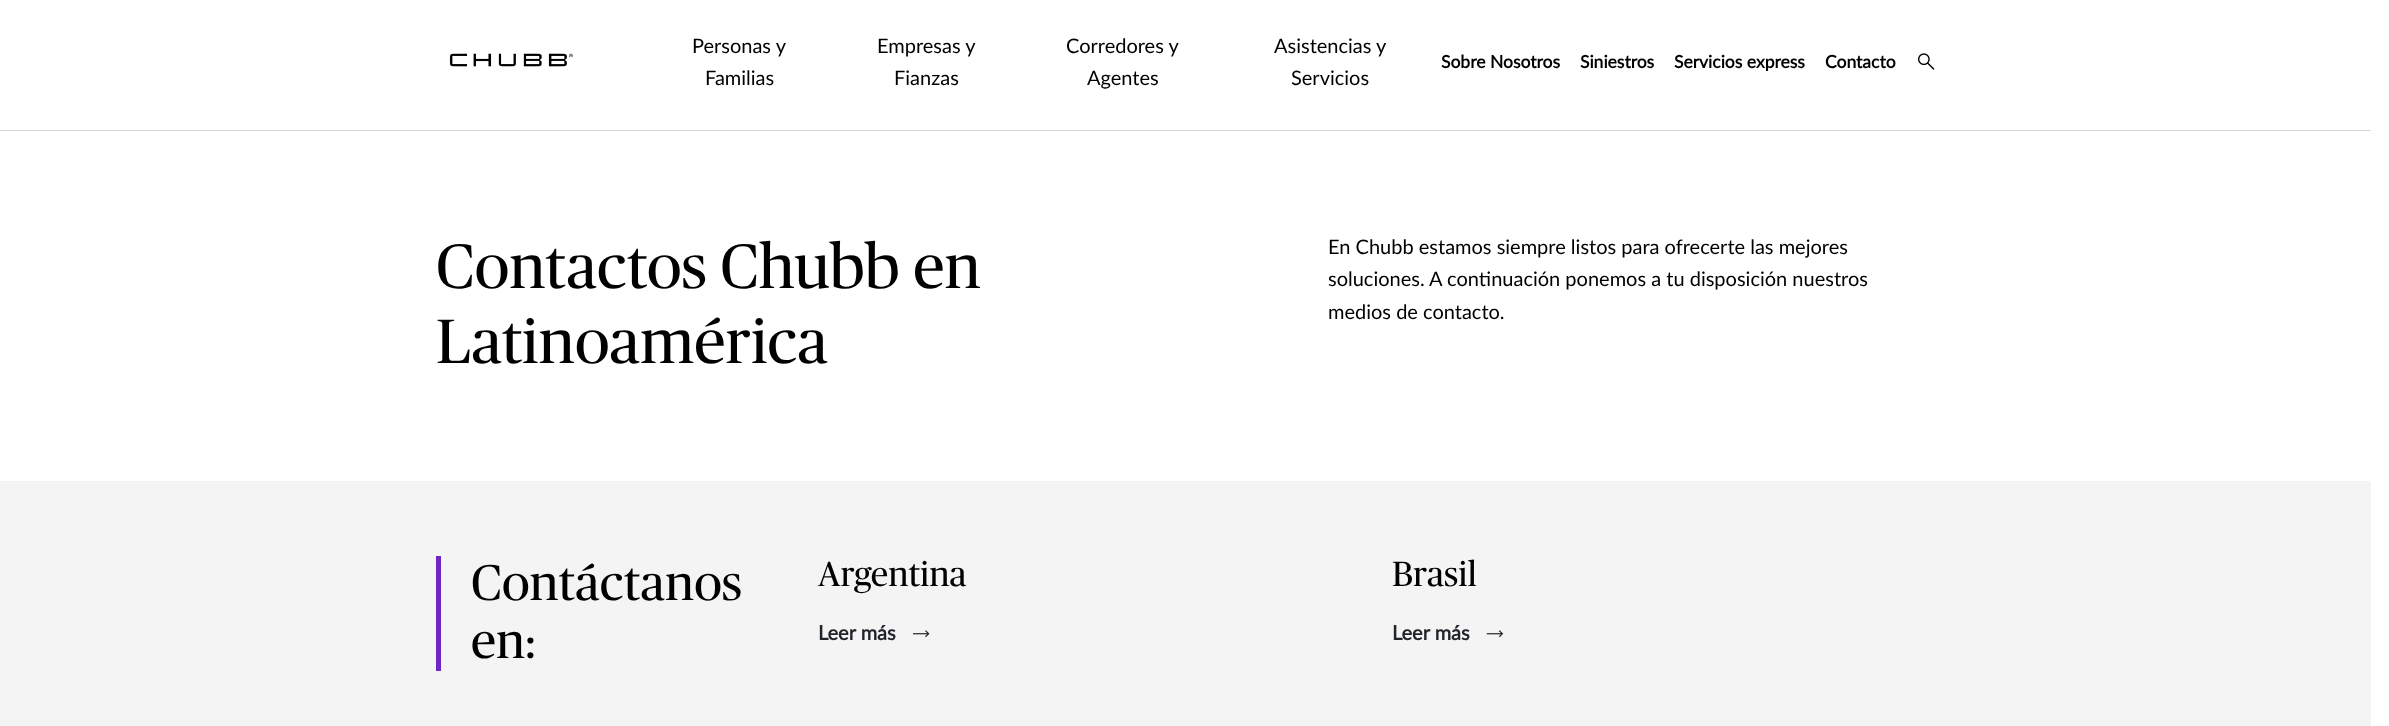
<!DOCTYPE html>
<meta charset="utf-8">
<style>body { margin: 0 } canvas { display: block }</style>
<canvas id="canvas" width="2389" height="726"></canvas>
<img id="img1" src="images/1.png" hidden>
<img id="img2" src="images/2.png" hidden>
<img id="img3" src="images/3.png" hidden>
<img id="img4" src="images/4.png" hidden>
<script>
window.onload = function () {
    const canvas = document.getElementById('canvas');
    const context = canvas.getContext('2d');
    context.miterLimit = 4;
    context.fontKerning = 'normal';

    context.fillStyle = 'rgb(255, 255, 255)';
    context.fillRect(0, 0, 2389, 726);
    context.fillStyle = 'rgb(215, 215, 215)';
    context.fillRect(0, 130, 2371, 1);
    context.drawImage(document.getElementById('img1'), 449, 53, 124, 14);
    context.drawImage(document.getElementById('img2'), 1918, 53, 17, 17);
    context.fillStyle = 'rgb(244, 244, 244)';
    context.fillRect(0, 481, 2371, 245);
    context.fillStyle = 'rgb(110, 39, 197)';
    context.fillRect(436, 556, 5, 115);
    context.drawImage(document.getElementById('img3'), 913, 630, 17, 8);
    context.drawImage(document.getElementById('img4'), 1486, 630, 18, 8);
    context.font = '20px Lato';
    context.fillStyle = 'rgb(0, 0, 0)';
    context.fillText('Personas y', 692, 53);
    context.fillText('Familias', 705, 85);
    context.fillText('Empresas y', 877, 53);
    context.fillText('Fianzas', 894, 85);
    context.fillText('Corredores y', 1066, 53);
    context.fillText('Agentes', 1087, 85);
    context.fillText('Asistencias y', 1274, 53);
    context.fillText('Servicios', 1291, 85);
    context.font = 'bold 17.5px Lato';
    context.fillText('Sobre Nosotros', 1441, 68);
    context.fillText('Siniestros', 1580, 68);
    context.fillText('Servicios express', 1674, 68);
    context.fillText('Contacto', 1825, 68);
    context.font = '62.5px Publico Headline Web';
    context.fillText('Contactos Chubb en', 436, 288);
    context.fillText('Latinoamérica', 436, 363);
    context.font = '20px Lato';
    context.fillText('En Chubb estamos siempre listos para ofrecerte las mejores', 1328, 254);
    context.fillText('soluciones. A continuación ponemos a tu disposición nuestros', 1328, 286);
    context.fillText('medios de contacto.', 1328, 319);
    context.font = '50px Publico Headline Web';
    context.fillText('Contáctanos', 471, 600);
    context.fillText('en:', 471, 658);
    context.font = '35px Publico Headline Web';
    context.fillText('Argentina', 818, 586);
    context.font = 'bold 20px Lato';
    context.fillStyle = 'rgb(33, 37, 41)';
    context.fillText('Leer más', 818, 640);
    context.font = '35px Publico Headline Web';
    context.fillStyle = 'rgb(0, 0, 0)';
    context.fillText('Brasil', 1392, 586);
    context.font = 'bold 20px Lato';
    context.fillStyle = 'rgb(33, 37, 41)';
    context.fillText('Leer más', 1392, 640);
};
</script>
